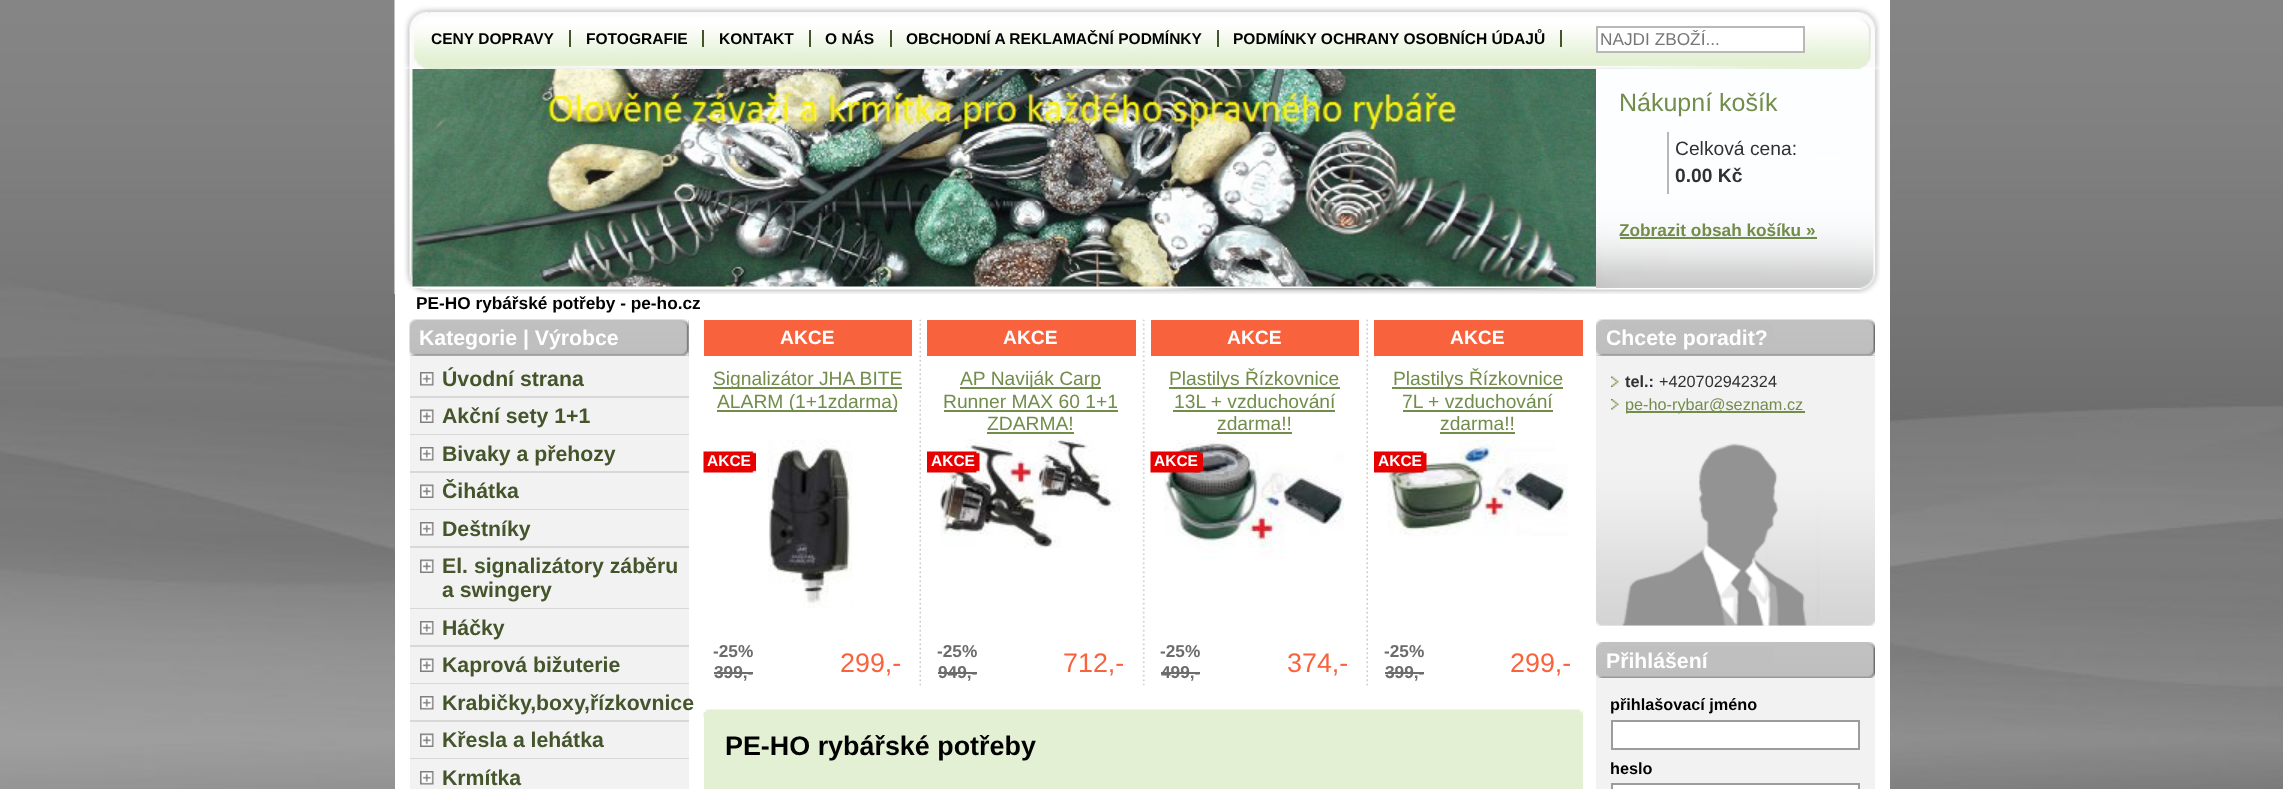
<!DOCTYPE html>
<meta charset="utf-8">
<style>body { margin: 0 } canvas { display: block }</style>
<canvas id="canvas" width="2283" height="789"></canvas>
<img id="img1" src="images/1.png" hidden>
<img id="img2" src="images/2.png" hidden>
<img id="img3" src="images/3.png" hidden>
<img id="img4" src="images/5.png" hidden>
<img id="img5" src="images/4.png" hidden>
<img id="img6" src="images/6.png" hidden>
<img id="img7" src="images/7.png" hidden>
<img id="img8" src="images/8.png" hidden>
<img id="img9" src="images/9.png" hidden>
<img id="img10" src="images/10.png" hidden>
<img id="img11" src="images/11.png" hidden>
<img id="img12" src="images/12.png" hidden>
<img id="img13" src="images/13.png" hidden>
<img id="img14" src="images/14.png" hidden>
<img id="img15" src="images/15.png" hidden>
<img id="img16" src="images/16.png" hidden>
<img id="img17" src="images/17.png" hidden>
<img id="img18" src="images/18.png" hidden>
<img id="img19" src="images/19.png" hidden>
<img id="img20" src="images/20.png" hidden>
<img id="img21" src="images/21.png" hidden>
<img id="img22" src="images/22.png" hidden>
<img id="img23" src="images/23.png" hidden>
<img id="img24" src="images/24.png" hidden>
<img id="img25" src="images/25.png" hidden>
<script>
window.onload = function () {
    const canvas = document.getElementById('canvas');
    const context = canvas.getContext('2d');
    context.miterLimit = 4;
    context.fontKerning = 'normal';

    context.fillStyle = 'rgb(255, 255, 255)';
    context.fillRect(0, 0, 2283, 789);
    context.drawImage(document.getElementById('img1'), 0, 0, 2283, 789);
    context.fillRect(395, 0, 1495, 789);
    context.drawImage(document.getElementById('img2'), 394, 0, 1486, 69);
    context.fillStyle = 'rgb(68, 85, 44)';
    context.fillRect(569, 30, 2, 17);
    context.fillRect(702, 30, 2, 17);
    context.fillRect(809, 30, 2, 17);
    context.fillRect(890, 30, 2, 17);
    context.fillRect(1217, 30, 2, 17);
    context.fillRect(1560, 30, 2, 17);
    context.fillStyle = 'rgb(255, 255, 255)';
    context.beginPath();
    context.rect(1597, 27, 207, 25);
    context.fill();
    context.strokeStyle = 'rgb(184, 184, 184)';
    context.lineWidth = 2;
    context.stroke();
    context.drawImage(document.getElementById('img3'), 394, 288, 1479, 6);
    context.drawImage(document.getElementById('img4'), 412, 69, 1184, 218);
    context.drawImage(document.getElementById('img5'), 394, 69, 19, 219);
    context.drawImage(document.getElementById('img6'), 1596, 69, 284, 219);
    context.fillStyle = 'rgb(184, 184, 184)';
    context.fillRect(1667, 132, 2, 62);
    context.fillStyle = 'rgb(114, 141, 75)';
    context.fillRect(1620, 237, 197, 2);
    context.fillStyle = 'rgb(190, 190, 190)';
    context.fillRect(410, 320, 279, 36);
    context.drawImage(document.getElementById('img7'), 409, 319, 280, 37);
    context.fillStyle = 'rgb(242, 242, 242)';
    context.fillRect(410, 356, 279, 402);
    context.drawImage(document.getElementById('img8'), 420, 372, 14, 14);
    context.fillStyle = 'rgb(216, 216, 216)';
    context.fillRect(410, 396, 279, 2);
    context.drawImage(document.getElementById('img9'), 420, 409, 14, 14);
    context.fillRect(410, 434, 279, 1);
    context.drawImage(document.getElementById('img8'), 420, 447, 14, 14);
    context.fillRect(410, 471, 279, 2);
    context.drawImage(document.getElementById('img9'), 420, 484, 14, 14);
    context.fillRect(410, 509, 279, 1);
    context.drawImage(document.getElementById('img8'), 420, 522, 14, 14);
    context.fillRect(410, 546, 279, 2);
    context.drawImage(document.getElementById('img9'), 420, 559, 14, 14);
    context.fillRect(410, 608, 279, 1);
    context.drawImage(document.getElementById('img8'), 420, 621, 14, 14);
    context.fillRect(410, 645, 279, 2);
    context.drawImage(document.getElementById('img9'), 420, 658, 14, 14);
    context.fillRect(410, 683, 279, 1);
    context.drawImage(document.getElementById('img8'), 420, 696, 14, 14);
    context.fillRect(410, 720, 279, 2);
    context.drawImage(document.getElementById('img9'), 420, 733, 14, 14);
    context.fillRect(410, 758, 279, 1);
    context.fillStyle = 'rgb(242, 242, 242)';
    context.fillRect(410, 759, 279, 30);
    context.drawImage(document.getElementById('img8'), 420, 771, 14, 14);
    context.drawImage(document.getElementById('img10'), 919, 319, 2, 367);
    context.fillStyle = 'rgb(248, 99, 62)';
    context.fillRect(704, 320, 208, 36);
    context.fillStyle = 'rgb(114, 141, 75)';
    context.fillRect(713, 387, 189, 2);
    context.fillRect(717, 410, 180, 2);
    context.drawImage(document.getElementById('img11'), 703, 451, 53, 22);
    context.drawImage(document.getElementById('img12'), 768, 439, 85, 169);
    context.fillStyle = 'rgb(108, 108, 108)';
    context.fillRect(714, 672, 39, 2);
    context.drawImage(document.getElementById('img13'), 1142, 319, 3, 367);
    context.fillStyle = 'rgb(248, 99, 62)';
    context.fillRect(927, 320, 209, 36);
    context.fillStyle = 'rgb(114, 141, 75)';
    context.fillRect(960, 387, 141, 2);
    context.fillRect(944, 410, 174, 2);
    context.fillRect(987, 432, 87, 2);
    context.drawImage(document.getElementById('img14'), 940, 439, 180, 109);
    context.drawImage(document.getElementById('img15'), 927, 451, 53, 22);
    context.fillStyle = 'rgb(108, 108, 108)';
    context.fillRect(938, 672, 39, 2);
    context.drawImage(document.getElementById('img10'), 1366, 319, 2, 367);
    context.fillStyle = 'rgb(248, 99, 62)';
    context.fillRect(1151, 320, 208, 36);
    context.fillStyle = 'rgb(114, 141, 75)';
    context.fillRect(1169, 387, 171, 2);
    context.fillRect(1173, 410, 162, 2);
    context.fillRect(1217, 432, 75, 2);
    context.drawImage(document.getElementById('img16'), 1164, 439, 180, 120);
    context.drawImage(document.getElementById('img17'), 1150, 451, 53, 22);
    context.fillStyle = 'rgb(108, 108, 108)';
    context.fillRect(1161, 672, 39, 2);
    context.fillStyle = 'rgb(248, 99, 62)';
    context.fillRect(1374, 320, 209, 36);
    context.fillStyle = 'rgb(114, 141, 75)';
    context.fillRect(1392, 387, 171, 2);
    context.fillRect(1403, 410, 150, 2);
    context.fillRect(1440, 432, 75, 2);
    context.drawImage(document.getElementById('img18'), 1387, 439, 181, 97);
    context.drawImage(document.getElementById('img19'), 1374, 451, 53, 22);
    context.fillStyle = 'rgb(108, 108, 108)';
    context.fillRect(1385, 672, 39, 2);
    context.fillStyle = 'rgb(227, 240, 211)';
    context.fillRect(704, 710, 879, 79);
    context.drawImage(document.getElementById('img20'), 703, 709, 880, 8);
    context.fillStyle = 'rgb(190, 190, 190)';
    context.fillRect(1596, 355, 279, 1);
    context.drawImage(document.getElementById('img21'), 1596, 319, 279, 37);
    context.fillStyle = 'rgb(242, 242, 242)';
    context.fillRect(1596, 356, 279, 270);
    context.drawImage(document.getElementById('img22'), 1596, 443, 279, 183);
    context.drawImage(document.getElementById('img23'), 1611, 376, 8, 11);
    context.drawImage(document.getElementById('img24'), 1611, 399, 8, 11);
    context.fillStyle = 'rgb(114, 141, 75)';
    context.fillRect(1626, 411, 179, 2);
    context.drawImage(document.getElementById('img25'), 1596, 642, 279, 36);
    context.fillStyle = 'rgb(242, 242, 242)';
    context.fillRect(1596, 678, 279, 111);
    context.fillStyle = 'rgb(255, 255, 255)';
    context.beginPath();
    context.rect(1612, 721, 247, 28);
    context.fill();
    context.strokeStyle = 'rgb(156, 156, 156)';
    context.stroke();
    context.beginPath();
    context.rect(1612, 784, 247, 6);
    context.fill();
    context.stroke();
    context.font = 'bold 15.55px Liberation Sans';
    context.fillStyle = 'rgb(0, 0, 0)';
    context.fillText('CENY DOPRAVY', 431, 44);
    context.fillText('FOTOGRAFIE', 586, 44);
    context.fillText('KONTAKT', 719, 44);
    context.fillText('O NÁS', 825, 44);
    context.fillText('OBCHODNÍ A REKLAMAČNÍ PODMÍNKY', 906, 44);
    context.fillText('PODMÍNKY OCHRANY OSOBNÍCH ÚDAJŮ', 1233, 44);
    context.font = '17.25px Liberation Sans';
    context.fillStyle = 'rgb(118, 118, 118)';
    context.fillText('NAJDI ZBOŽÍ...', 1600, 45);
    context.font = '25px Liberation Sans';
    context.fillStyle = 'rgb(114, 141, 75)';
    context.fillText('Nákupní košík', 1619, 111);
    context.font = '19.25px Liberation Sans';
    context.fillStyle = 'rgb(49, 49, 49)';
    context.fillText('Celková cena:', 1675, 155);
    context.font = 'bold 19.25px Liberation Sans';
    context.fillText('0.00 Kč', 1675, 182);
    context.font = 'bold 17.25px Liberation Sans';
    context.fillStyle = 'rgb(114, 141, 75)';
    context.fillText('Zobrazit obsah košíku »', 1619, 236);
    context.font = 'bold 21.25px Liberation Sans';
    context.fillStyle = 'rgb(255, 255, 255)';
    context.fillText('Kategorie | Výrobce', 419, 345);
    context.fillStyle = 'rgb(68, 85, 44)';
    context.fillText('Úvodní strana', 442, 386);
    context.fillText('Akční sety 1+1', 442, 423);
    context.fillText('Bivaky a přehozy', 442, 461);
    context.fillText('Čihátka', 442, 498);
    context.fillText('Deštníky', 442, 536);
    context.fillText('El. signalizátory záběru', 442, 573);
    context.fillText('a swingery', 442, 597);
    context.fillText('Háčky', 442, 635);
    context.fillText('Kaprová bižuterie', 442, 672);
    context.fillText('Krabičky,boxy,řízkovnice', 442, 710);
    context.fillText('Křesla a lehátka', 442, 747);
    context.fillText('Krmítka', 442, 785);
    context.font = 'bold 19.25px Liberation Sans';
    context.fillStyle = 'rgb(255, 255, 255)';
    context.fillText('AKCE', 780, 344);
    context.font = '19.25px Liberation Sans';
    context.fillStyle = 'rgb(114, 141, 75)';
    context.fillText('Signalizátor JHA BITE', 713, 385);
    context.fillText('ALARM (1+1zdarma)', 717, 408);
    context.font = 'bold 15.5px Liberation Sans';
    context.fillStyle = 'rgb(255, 255, 255)';
    context.fillText('AKCE', 707, 466);
    context.font = 'bold 17.25px Liberation Sans';
    context.fillStyle = 'rgb(108, 108, 108)';
    context.fillText('-25%', 713, 657);
    context.fillText('399,-', 714, 678);
    context.font = '26.9px Liberation Sans';
    context.fillStyle = 'rgb(248, 99, 62)';
    context.fillText('299,-', 840, 672);
    context.font = 'bold 19.25px Liberation Sans';
    context.fillStyle = 'rgb(255, 255, 255)';
    context.fillText('AKCE', 1003, 344);
    context.font = '19.25px Liberation Sans';
    context.fillStyle = 'rgb(114, 141, 75)';
    context.fillText('AP Naviják Carp', 960, 385);
    context.fillText('Runner MAX 60 1+1', 943, 408);
    context.fillText('ZDARMA!', 987, 430);
    context.font = 'bold 15.5px Liberation Sans';
    context.fillStyle = 'rgb(255, 255, 255)';
    context.fillText('AKCE', 931, 466);
    context.font = 'bold 17.25px Liberation Sans';
    context.fillStyle = 'rgb(108, 108, 108)';
    context.fillText('-25%', 937, 657);
    context.fillText('949,-', 938, 678);
    context.font = '26.9px Liberation Sans';
    context.fillStyle = 'rgb(248, 99, 62)';
    context.fillText('712,-', 1063, 672);
    context.font = 'bold 19.25px Liberation Sans';
    context.fillStyle = 'rgb(255, 255, 255)';
    context.fillText('AKCE', 1227, 344);
    context.font = '19.25px Liberation Sans';
    context.fillStyle = 'rgb(114, 141, 75)';
    context.fillText('Plastilys Řízkovnice', 1169, 385);
    context.fillText('13L + vzduchování', 1174, 408);
    context.fillText('zdarma!!', 1217, 430);
    context.font = 'bold 15.5px Liberation Sans';
    context.fillStyle = 'rgb(255, 255, 255)';
    context.fillText('AKCE', 1154, 466);
    context.font = 'bold 17.25px Liberation Sans';
    context.fillStyle = 'rgb(108, 108, 108)';
    context.fillText('-25%', 1160, 657);
    context.fillText('499,-', 1161, 678);
    context.font = '26.9px Liberation Sans';
    context.fillStyle = 'rgb(248, 99, 62)';
    context.fillText('374,-', 1287, 672);
    context.font = 'bold 19.25px Liberation Sans';
    context.fillStyle = 'rgb(255, 255, 255)';
    context.fillText('AKCE', 1450, 344);
    context.font = '19.25px Liberation Sans';
    context.fillStyle = 'rgb(114, 141, 75)';
    context.fillText('Plastilys Řízkovnice', 1393, 385);
    context.fillText('7L + vzduchování', 1402, 408);
    context.fillText('zdarma!!', 1440, 430);
    context.font = 'bold 15.5px Liberation Sans';
    context.fillStyle = 'rgb(255, 255, 255)';
    context.fillText('AKCE', 1378, 466);
    context.font = 'bold 17.25px Liberation Sans';
    context.fillStyle = 'rgb(108, 108, 108)';
    context.fillText('-25%', 1384, 657);
    context.fillText('399,-', 1385, 678);
    context.font = '26.9px Liberation Sans';
    context.fillStyle = 'rgb(248, 99, 62)';
    context.fillText('299,-', 1510, 672);
    context.font = 'bold 26.9px Liberation Sans';
    context.fillStyle = 'rgb(0, 0, 0)';
    context.fillText('PE-HO rybářské potřeby', 725, 755);
    context.font = 'bold 21.25px Liberation Sans';
    context.fillStyle = 'rgb(255, 255, 255)';
    context.fillText('Chcete poradit?', 1606, 345);
    context.font = 'bold 16.25px Liberation Sans';
    context.fillStyle = 'rgb(49, 49, 49)';
    context.fillText('tel.:', 1625, 387);
    context.font = '16.25px Liberation Sans';
    context.fillText('+420702942324', 1659, 387);
    context.fillStyle = 'rgb(114, 141, 75)';
    context.fillText('pe-ho-rybar@seznam.cz', 1625, 410);
    context.font = 'bold 21.25px Liberation Sans';
    context.fillStyle = 'rgb(255, 255, 255)';
    context.fillText('Přihlášení', 1606, 668);
    context.font = 'bold 16.25px Liberation Sans';
    context.fillStyle = 'rgb(0, 0, 0)';
    context.fillText('přihlašovací jméno', 1610, 710);
    context.fillText('heslo', 1610, 774);
    context.font = 'bold 17.25px Liberation Sans';
    context.fillText('PE-HO rybářské potřeby - pe-ho.cz', 416, 309);
};
</script>
